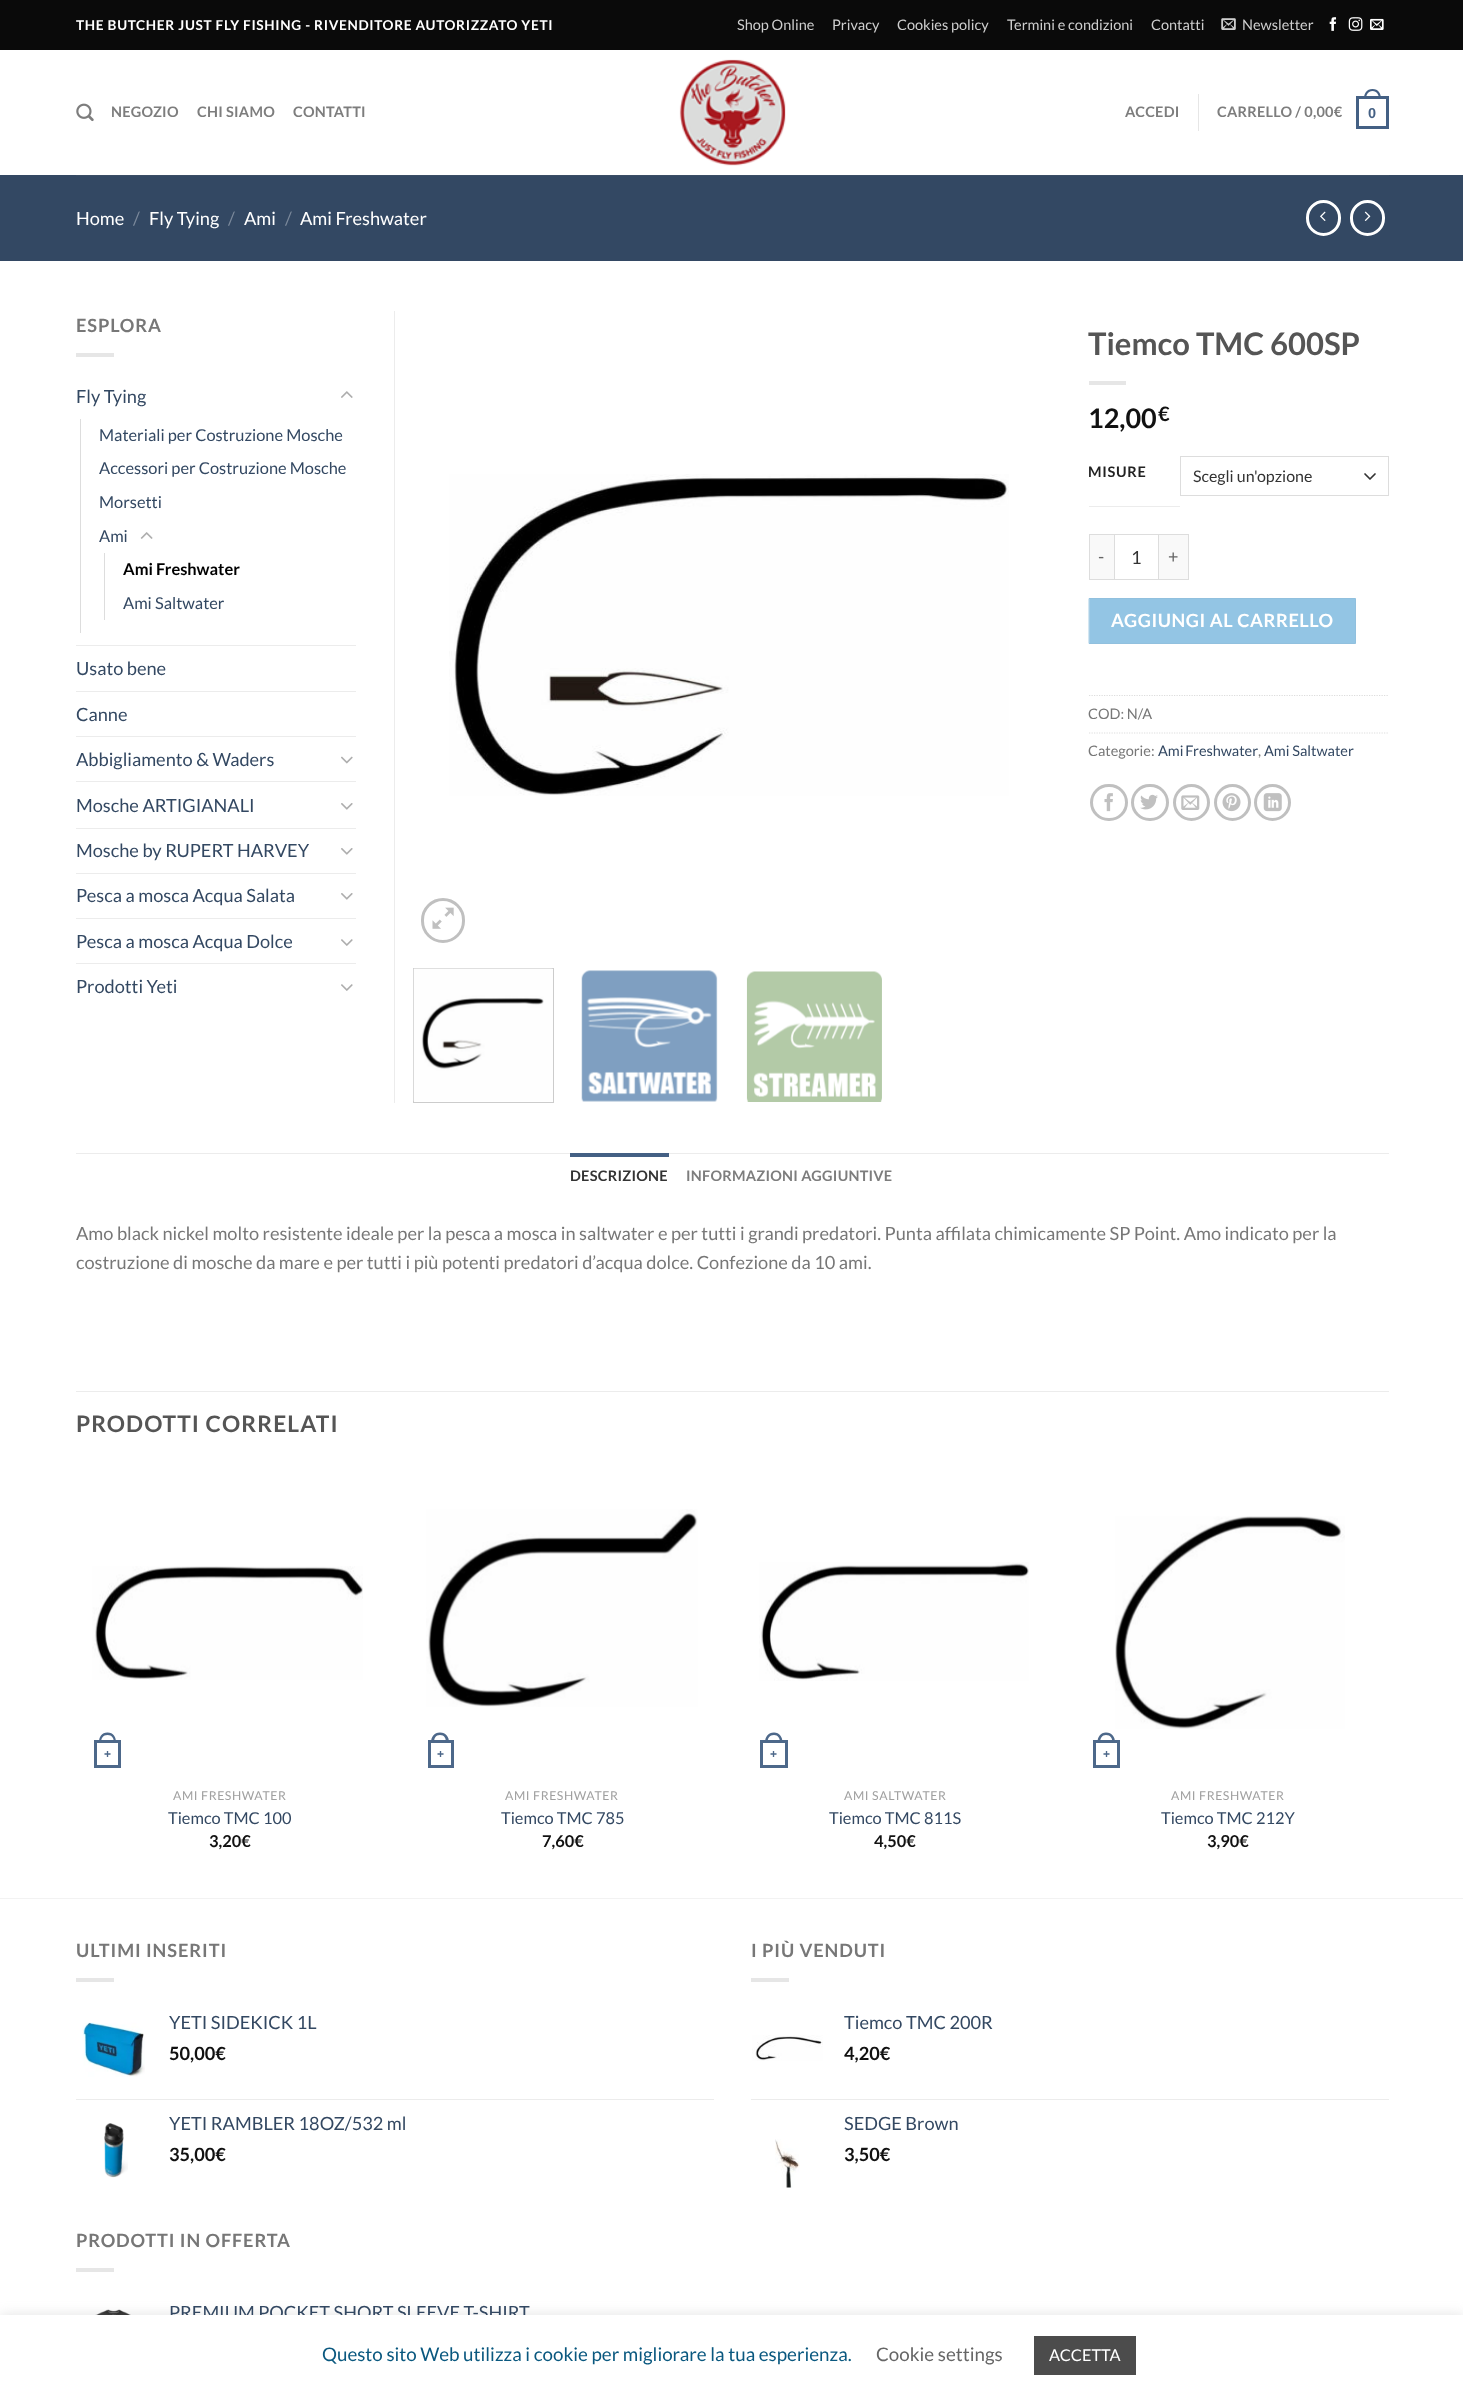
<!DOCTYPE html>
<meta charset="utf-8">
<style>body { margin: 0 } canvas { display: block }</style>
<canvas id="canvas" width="1463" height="2396"></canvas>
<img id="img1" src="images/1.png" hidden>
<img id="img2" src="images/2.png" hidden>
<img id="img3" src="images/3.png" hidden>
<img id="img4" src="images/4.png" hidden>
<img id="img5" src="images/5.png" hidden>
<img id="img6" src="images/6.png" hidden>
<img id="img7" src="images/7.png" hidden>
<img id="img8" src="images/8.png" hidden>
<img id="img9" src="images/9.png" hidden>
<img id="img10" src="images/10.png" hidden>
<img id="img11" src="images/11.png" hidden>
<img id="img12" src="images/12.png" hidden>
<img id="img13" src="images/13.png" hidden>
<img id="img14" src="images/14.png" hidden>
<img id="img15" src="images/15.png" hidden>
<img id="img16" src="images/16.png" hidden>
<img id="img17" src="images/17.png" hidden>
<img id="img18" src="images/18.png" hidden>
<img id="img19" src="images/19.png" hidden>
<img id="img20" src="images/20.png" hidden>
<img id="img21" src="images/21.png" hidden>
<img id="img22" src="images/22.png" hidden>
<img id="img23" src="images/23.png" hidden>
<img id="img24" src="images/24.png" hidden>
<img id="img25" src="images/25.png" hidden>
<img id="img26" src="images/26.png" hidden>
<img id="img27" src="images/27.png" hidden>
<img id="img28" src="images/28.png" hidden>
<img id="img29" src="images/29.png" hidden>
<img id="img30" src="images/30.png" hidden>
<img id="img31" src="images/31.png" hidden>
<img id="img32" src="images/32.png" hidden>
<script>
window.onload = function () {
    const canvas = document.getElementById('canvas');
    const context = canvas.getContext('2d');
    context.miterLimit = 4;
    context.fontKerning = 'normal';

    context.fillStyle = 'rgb(255, 255, 255)';
    context.fillRect(0, 0, 1463, 2396);
    context.fillStyle = 'rgb(10, 10, 10)';
    context.fillRect(0, 0, 1463, 50);
    context.drawImage(document.getElementById('img1'), 1221, 18, 15, 12);
    context.drawImage(document.getElementById('img2'), 1329, 17, 8, 14);
    context.drawImage(document.getElementById('img3'), 1348, 17, 15, 14);
    context.drawImage(document.getElementById('img4'), 1370, 18, 14, 12);
    context.drawImage(document.getElementById('img5'), 76, 103, 18, 19);
    context.drawImage(document.getElementById('img6'), 679, 59, 107, 107);
    context.fillStyle = 'rgb(230, 230, 230)';
    context.fillRect(1198, 94, 1, 37);
    context.strokeStyle = 'rgb(68, 96, 132)';
    context.lineWidth = 3;
    context.strokeRect(1357.5, 97.5, 30, 30);
    context.fillStyle = 'rgb(68, 96, 132)';
    context.beginPath();
    context.moveTo(1372.5, 89);
    context.bezierCurveTo(1378.5, 89, 1381, 93.5, 1381, 99);
    context.lineTo(1364, 99);
    context.bezierCurveTo(1364, 93.5, 1366.5, 89, 1372.5, 89);
    context.closePath();
    context.moveTo(1372.5, 91);
    context.bezierCurveTo(1377, 91, 1379, 95, 1379, 99);
    context.lineTo(1366, 99);
    context.bezierCurveTo(1366, 95, 1368, 91, 1372.5, 91);
    context.closePath();
    context.fill('evenodd');
    context.fillStyle = 'rgb(51, 72, 99)';
    context.fillRect(0, 175, 1463, 86);
    context.fillStyle = 'rgb(58, 77, 101)';
    context.fillRect(76, 175, 1313, 1);
    context.beginPath();
    context.roundRect(1307.5, 201.5, 32, 33, 16);
    context.strokeStyle = 'rgb(255, 255, 255)';
    context.stroke();
    context.drawImage(document.getElementById('img7'), 1320, 211, 6, 10);
    context.beginPath();
    context.roundRect(1351.5, 201.5, 32, 33, 16);
    context.stroke();
    context.drawImage(document.getElementById('img8'), 1364, 211, 7, 10);
    context.fillStyle = 'rgb(236, 236, 236)';
    context.fillRect(394, 311, 1, 792);
    context.fillStyle = 'rgb(230, 230, 230)';
    context.fillRect(76, 353, 38, 4);
    context.drawImage(document.getElementById('img9'), 341, 391, 12, 7);
    context.fillStyle = 'rgb(221, 221, 221)';
    context.fillRect(80, 419, 1, 214);
    context.drawImage(document.getElementById('img10'), 140, 532, 13, 7);
    context.fillRect(104, 553, 1, 67);
    context.fillStyle = 'rgb(236, 236, 236)';
    context.fillRect(76, 645, 280, 1);
    context.fillRect(76, 691, 280, 1);
    context.fillRect(76, 736, 280, 1);
    context.drawImage(document.getElementById('img11'), 341, 756, 12, 8);
    context.fillRect(76, 781, 280, 1);
    context.drawImage(document.getElementById('img12'), 341, 803, 12, 7);
    context.fillRect(76, 828, 280, 1);
    context.drawImage(document.getElementById('img12'), 341, 848, 12, 7);
    context.fillRect(76, 873, 280, 1);
    context.drawImage(document.getElementById('img12'), 341, 893, 12, 7);
    context.fillRect(76, 918, 280, 1);
    context.drawImage(document.getElementById('img13'), 341, 939, 12, 7);
    context.fillRect(76, 963, 280, 1);
    context.drawImage(document.getElementById('img13'), 341, 984, 12, 7);
    context.drawImage(document.getElementById('img14'), 449, 474, 560, 322);
    context.beginPath();
    context.roundRect(422.5, 899.5, 41, 42, 20.5);
    context.strokeStyle = 'rgb(192, 192, 192)';
    context.stroke();
    context.drawImage(document.getElementById('img15'), 432, 907, 22, 22);
    context.strokeStyle = 'rgb(204, 204, 204)';
    context.lineWidth = 1;
    context.strokeRect(413.5, 968.5, 140, 134);
    context.drawImage(document.getElementById('img16'), 413, 968, 140, 133);
    context.drawImage(document.getElementById('img17'), 581, 970, 137, 132);
    context.drawImage(document.getElementById('img18'), 746, 971, 136, 131);
    context.fillStyle = 'rgb(230, 230, 230)';
    context.fillRect(1089, 381, 37, 4);
    context.fillStyle = 'rgb(236, 236, 236)';
    context.fillRect(1089, 506, 91, 1);
    context.beginPath();
    context.moveTo(1365, 474);
    context.lineTo(1370, 479);
    context.lineTo(1375, 474);
    context.strokeStyle = 'rgb(51, 51, 51)';
    context.lineWidth = 1.7;
    context.lineCap = 'round';
    context.lineJoin = 'round';
    context.stroke();
    context.strokeStyle = 'rgb(221, 221, 221)';
    context.lineWidth = 1;
    context.lineJoin = 'miter';
    context.strokeRect(1180.5, 456.5, 208, 39);
    context.fillStyle = 'rgb(249, 249, 249)';
    context.fillRect(1090, 535, 24, 44);
    context.fillStyle = 'rgb(221, 221, 221)';
    context.fillRect(1089, 534, 25, 1);
    context.fillRect(1089, 579, 25, 1);
    context.fillRect(1089, 534, 1, 46);
    context.strokeRect(1114.5, 534.5, 44, 45);
    context.fillStyle = 'rgb(249, 249, 249)';
    context.fillRect(1159, 535, 29, 44);
    context.fillStyle = 'rgb(221, 221, 221)';
    context.fillRect(1159, 534, 30, 1);
    context.fillRect(1188, 534, 1, 46);
    context.fillRect(1159, 579, 30, 1);
    context.fillStyle = 'rgb(147, 197, 228)';
    context.beginPath();
    context.rect(1089.5, 598.5, 266, 45);
    context.fill();
    context.strokeStyle = 'rgb(145, 192, 222)';
    context.stroke();
    context.beginPath();
    context.moveTo(1089, 695.5);
    context.lineTo(1389, 695.5);
    context.strokeStyle = 'rgb(221, 221, 221)';
    context.lineWidth = 1.2;
    context.lineCap = 'butt';
    context.setLineDash([1.25, 1.25]);
    context.stroke();
    context.beginPath();
    context.moveTo(1089, 733);
    context.lineTo(1389, 733);
    context.stroke();
    context.beginPath();
    context.roundRect(1091.5, 785.5, 35, 34, 17);
    context.strokeStyle = 'rgb(192, 192, 192)';
    context.lineWidth = 3;
    context.setLineDash([]);
    context.stroke();
    context.drawImage(document.getElementById('img19'), 1104, 793, 9, 19);
    context.beginPath();
    context.roundRect(1132.5, 785.5, 35, 34, 17);
    context.stroke();
    context.drawImage(document.getElementById('img20'), 1140, 794, 18, 16);
    context.beginPath();
    context.arc(1191.5, 802.5, 17, 0, 2 * Math.PI);
    context.stroke();
    context.drawImage(document.getElementById('img21'), 1181, 795, 19, 15);
    context.beginPath();
    context.arc(1232.5, 802.5, 17, 0, 2 * Math.PI);
    context.stroke();
    context.drawImage(document.getElementById('img22'), 1222, 793, 19, 19);
    context.beginPath();
    context.arc(1272.5, 802.5, 17, 0, 2 * Math.PI);
    context.stroke();
    context.drawImage(document.getElementById('img23'), 1263, 793, 19, 19);
    context.fillStyle = 'rgb(236, 236, 236)';
    context.fillRect(76, 1153, 1313, 1);
    context.fillStyle = 'rgb(68, 96, 132)';
    context.fillRect(570, 1153, 99, 4);
    context.fillStyle = 'rgb(236, 236, 236)';
    context.fillRect(76, 1391, 1313, 1);
    context.drawImage(document.getElementById('img24'), 92, 1566, 271, 114);
    context.strokeStyle = 'rgb(77, 104, 138)';
    context.strokeRect(95.5, 1741.5, 24, 25);
    context.fillStyle = 'rgb(77, 104, 138)';
    context.beginPath();
    context.moveTo(107.5, 1732.5);
    context.bezierCurveTo(113.5, 1732.5, 116, 1737, 116, 1742.5);
    context.lineTo(99, 1742.5);
    context.bezierCurveTo(99, 1737, 101.5, 1732.5, 107.5, 1732.5);
    context.closePath();
    context.moveTo(107.5, 1735);
    context.bezierCurveTo(112, 1735, 114, 1738.5, 114, 1742.5);
    context.lineTo(101, 1742.5);
    context.bezierCurveTo(101, 1738.5, 103, 1735, 107.5, 1735);
    context.closePath();
    context.fill('evenodd');
    context.drawImage(document.getElementById('img25'), 426, 1509, 272, 198);
    context.strokeRect(429.5, 1741.5, 23, 25);
    context.beginPath();
    context.moveTo(440, 1732.5);
    context.bezierCurveTo(446, 1732.5, 449, 1737, 449, 1742.5);
    context.lineTo(431, 1742.5);
    context.bezierCurveTo(431, 1737, 434, 1732.5, 440, 1732.5);
    context.closePath();
    context.moveTo(440, 1735);
    context.bezierCurveTo(444.5, 1735, 446, 1738.5, 446, 1742.5);
    context.lineTo(434, 1742.5);
    context.bezierCurveTo(434, 1738.5, 435.5, 1735, 440, 1735);
    context.closePath();
    context.fill('evenodd');
    context.drawImage(document.getElementById('img26'), 759, 1562, 270, 119);
    context.strokeRect(761.5, 1741.5, 25, 25);
    context.beginPath();
    context.moveTo(774, 1732.5);
    context.bezierCurveTo(779.5, 1732.5, 782.5, 1737, 782.5, 1742.5);
    context.lineTo(765, 1742.5);
    context.bezierCurveTo(765, 1737, 768, 1732.5, 774, 1732.5);
    context.closePath();
    context.moveTo(774, 1735);
    context.bezierCurveTo(778, 1735, 780, 1738.5, 780, 1742.5);
    context.lineTo(767.5, 1742.5);
    context.bezierCurveTo(767.5, 1738.5, 769.5, 1735, 774, 1735);
    context.closePath();
    context.fill('evenodd');
    context.drawImage(document.getElementById('img27'), 1115, 1516, 230, 213);
    context.strokeRect(1094.5, 1741.5, 24, 25);
    context.beginPath();
    context.moveTo(1106, 1732.5);
    context.bezierCurveTo(1112, 1732.5, 1115, 1737, 1115, 1742.5);
    context.lineTo(1097.5, 1742.5);
    context.bezierCurveTo(1097.5, 1737, 1100.5, 1732.5, 1106, 1732.5);
    context.closePath();
    context.moveTo(1106, 1735);
    context.bezierCurveTo(1110.5, 1735, 1112.5, 1738.5, 1112.5, 1742.5);
    context.lineTo(1100, 1742.5);
    context.bezierCurveTo(1100, 1738.5, 1102, 1735, 1106, 1735);
    context.closePath();
    context.fill('evenodd');
    context.fillStyle = 'rgb(242, 242, 242)';
    context.fillRect(0, 1898, 1463, 1);
    context.fillStyle = 'rgb(230, 230, 230)';
    context.fillRect(76, 1978, 38, 4);
    context.drawImage(document.getElementById('img28'), 82, 2022, 63, 55);
    context.fillStyle = 'rgb(236, 236, 236)';
    context.fillRect(76, 2099, 638, 1);
    context.drawImage(document.getElementById('img29'), 104, 2123, 24, 55);
    context.fillStyle = 'rgb(230, 230, 230)';
    context.fillRect(751, 1978, 38, 4);
    context.drawImage(document.getElementById('img30'), 752, 2035, 71, 26);
    context.fillStyle = 'rgb(236, 236, 236)';
    context.fillRect(751, 2099, 638, 1);
    context.drawImage(document.getElementById('img31'), 775, 2139, 25, 49);
    context.fillStyle = 'rgb(230, 230, 230)';
    context.fillRect(76, 2268, 38, 4);
    context.drawImage(document.getElementById('img32'), 95, 2309, 36, 6);
    context.fillStyle = 'rgba(172, 171, 171, 0.3)';
    context.filter = 'blur(6px)';
    context.beginPath();
    context.rect(0, 2314, 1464, 81);
    context.fill();
    context.filter = 'none';
    context.letterSpacing = '0.68px';
    context.font = 'bold 13.65px Lato';
    context.fillStyle = 'rgb(255, 255, 255)';
    context.fillText('THE BUTCHER JUST FLY FISHING - RIVENDITORE AUTORIZZATO YETI', 76, 30);
    context.letterSpacing = '0px';
    context.font = '14.5px Lato';
    context.fillStyle = 'rgb(206, 206, 206)';
    context.fillText('Shop Online', 737, 30);
    context.fillText('Privacy', 832, 30);
    context.fillText('Cookies policy', 897, 30);
    context.fillText('Termini e condizioni', 1007, 30);
    context.fillText('Contatti', 1151, 30);
    context.fillText('Newsletter', 1242, 30);
    context.letterSpacing = '0.25px';
    context.font = 'bold 14.5px Lato';
    context.fillStyle = 'rgb(125, 125, 125)';
    context.fillText('NEGOZIO', 111, 117);
    context.fillText('CHI SIAMO', 197, 117);
    context.fillText('CONTATTI', 293, 117);
    context.fillText('ACCEDI', 1125, 117);
    context.fillText('CARRELLO / 0,00€', 1217, 117);
    context.font = 'bold 14.5px Liberation Sans';
    context.fillStyle = 'rgb(68, 96, 132)';
    context.fillText('0', 1368, 118);
    context.letterSpacing = '0px';
    context.font = '18.2px Lato';
    context.fillStyle = 'rgb(255, 255, 255)';
    context.fillText('Home', 76, 225);
    context.fillStyle = 'rgb(122, 136, 154)';
    context.fillText('/', 133, 225);
    context.fillStyle = 'rgb(255, 255, 255)';
    context.fillText('Fly Tying', 149, 225);
    context.fillStyle = 'rgb(122, 136, 154)';
    context.fillText('/', 228, 225);
    context.fillStyle = 'rgb(255, 255, 255)';
    context.fillText('Ami', 244, 225);
    context.fillStyle = 'rgb(122, 136, 154)';
    context.fillText('/', 285, 225);
    context.fillStyle = 'rgb(255, 255, 255)';
    context.fillText('Ami Freshwater', 300, 225);
    context.letterSpacing = '0.9px';
    context.font = 'bold 18.2px Lato';
    context.fillStyle = 'rgb(119, 119, 119)';
    context.fillText('ESPLORA', 76, 332);
    context.letterSpacing = '0px';
    context.font = '18.2px Lato';
    context.fillStyle = 'rgb(51, 72, 98)';
    context.fillText('Fly Tying', 76, 403);
    context.font = '16.4px Lato';
    context.fillText('Materiali per Costruzione Mosche', 99, 441);
    context.fillText('Accessori per Costruzione Mosche', 99, 474);
    context.fillText('Morsetti', 99, 508);
    context.fillText('Ami', 99, 542);
    context.font = 'bold 16.4px Lato';
    context.fillStyle = 'rgb(0, 0, 0)';
    context.fillText('Ami Freshwater', 123, 575);
    context.font = '16.4px Lato';
    context.fillStyle = 'rgb(51, 72, 98)';
    context.fillText('Ami Saltwater', 123, 609);
    context.font = '18.2px Lato';
    context.fillText('Usato bene', 76, 675);
    context.fillText('Canne', 76, 721);
    context.fillText('Abbigliamento & Waders', 76, 766);
    context.fillText('Mosche ARTIGIANALI', 76, 812);
    context.fillText('Mosche by RUPERT HARVEY', 76, 857);
    context.fillText('Pesca a mosca Acqua Salata', 76, 902);
    context.fillText('Pesca a mosca Acqua Dolce', 76, 948);
    context.fillText('Prodotti Yeti', 76, 993);
    context.font = 'bold 31px Lato';
    context.fillStyle = 'rgb(85, 85, 85)';
    context.fillText('Tiemco TMC 600SP', 1088, 355);
    context.font = 'bold 27px Lato';
    context.fillStyle = 'rgb(17, 17, 17)';
    context.fillText('12,00', 1088, 428);
    context.font = 'bold 20px Lato';
    context.fillText('€', 1158, 421);
    context.letterSpacing = '0.75px';
    context.font = 'bold 14.5px Lato';
    context.fillStyle = 'rgb(34, 34, 34)';
    context.fillText('MISURE', 1088, 477);
    context.letterSpacing = '0px';
    context.font = '16px Lato';
    context.fillStyle = 'rgb(51, 51, 51)';
    context.fillText('Scegli un\'opzione', 1193, 482);
    context.letterSpacing = '1px';
    context.font = '18px Lato';
    context.fillStyle = 'rgb(102, 102, 102)';
    context.fillText('-', 1098, 563);
    context.letterSpacing = '0px';
    context.font = '18.2px Lato';
    context.fillStyle = 'rgb(51, 51, 51)';
    context.fillText('1', 1131, 564);
    context.letterSpacing = '1px';
    context.font = '18px Lato';
    context.fillStyle = 'rgb(102, 102, 102)';
    context.fillText('+', 1168, 563);
    context.letterSpacing = '0.55px';
    context.font = 'bold 18.2px Lato';
    context.fillStyle = 'rgb(255, 255, 255)';
    context.fillText('AGGIUNGI AL CARRELLO', 1111, 627);
    context.letterSpacing = '0px';
    context.font = '14.5px Lato';
    context.fillStyle = 'rgb(119, 119, 119)';
    context.fillText('COD: N/A', 1088, 719);
    context.fillText('Categorie:', 1088, 756);
    context.wordSpacing = '-1px';
    context.fillStyle = 'rgb(51, 72, 98)';
    context.fillText('Ami Freshwater', 1158, 756);
    context.wordSpacing = '0px';
    context.fillStyle = 'rgb(119, 119, 119)';
    context.fillText(',', 1258, 756);
    context.fillStyle = 'rgb(51, 72, 98)';
    context.fillText('Ami Saltwater', 1264, 756);
    context.letterSpacing = '0.25px';
    context.font = 'bold 14.5px Lato';
    context.fillStyle = 'rgb(51, 51, 51)';
    context.fillText('DESCRIZIONE', 570, 1181);
    context.fillStyle = 'rgb(125, 125, 125)';
    context.fillText('INFORMAZIONI AGGIUNTIVE', 686, 1181);
    context.letterSpacing = '0px';
    context.font = '18.2px Lato';
    context.fillStyle = 'rgb(119, 119, 119)';
    context.fillText('Amo black nickel molto resistente ideale per la pesca a mosca in saltwater e per tutti i grandi predatori. Punta affilata chimicamente SP Point. Amo indicato per la', 76, 1240);
    context.fillText('costruzione di mosche da mare e per tutti i più potenti predatori d’acqua dolce. Confezione da 10 ami.', 76, 1269);
    context.letterSpacing = '1.1px';
    context.font = 'bold 22.75px Lato';
    context.fillStyle = 'rgb(85, 85, 85)';
    context.fillText('PRODOTTI CORRELATI', 76, 1432);
    context.letterSpacing = '0px';
    context.font = 'bold 12px Liberation Sans';
    context.fillStyle = 'rgb(77, 104, 138)';
    context.fillText('+', 104, 1758);
    context.letterSpacing = '0.6px';
    context.font = '12.25px Lato';
    context.fillStyle = 'rgb(160, 160, 160)';
    context.fillText('AMI FRESHWATER', 173, 1800);
    context.letterSpacing = '0px';
    context.font = '16.4px Lato';
    context.fillStyle = 'rgb(51, 72, 98)';
    context.fillText('Tiemco TMC 100', 168, 1824);
    context.font = 'bold 16.4px Lato';
    context.fillStyle = 'rgb(17, 17, 17)';
    context.fillText('3,20€', 209, 1847);
    context.font = 'bold 12px Liberation Sans';
    context.fillStyle = 'rgb(77, 104, 138)';
    context.fillText('+', 437, 1758);
    context.letterSpacing = '0.6px';
    context.font = '12.25px Lato';
    context.fillStyle = 'rgb(160, 160, 160)';
    context.fillText('AMI FRESHWATER', 505, 1800);
    context.letterSpacing = '0px';
    context.font = '16.4px Lato';
    context.fillStyle = 'rgb(51, 72, 98)';
    context.fillText('Tiemco TMC 785', 501, 1824);
    context.font = 'bold 16.4px Lato';
    context.fillStyle = 'rgb(17, 17, 17)';
    context.fillText('7,60€', 542, 1847);
    context.font = 'bold 12px Liberation Sans';
    context.fillStyle = 'rgb(77, 104, 138)';
    context.fillText('+', 770, 1758);
    context.letterSpacing = '0.6px';
    context.font = '12.25px Lato';
    context.fillStyle = 'rgb(160, 160, 160)';
    context.fillText('AMI SALTWATER', 844, 1800);
    context.letterSpacing = '0px';
    context.font = '16.4px Lato';
    context.fillStyle = 'rgb(51, 72, 98)';
    context.fillText('Tiemco TMC 811S', 829, 1824);
    context.font = 'bold 16.4px Lato';
    context.fillStyle = 'rgb(17, 17, 17)';
    context.fillText('4,50€', 874, 1847);
    context.font = 'bold 12px Liberation Sans';
    context.fillStyle = 'rgb(77, 104, 138)';
    context.fillText('+', 1103, 1758);
    context.letterSpacing = '0.6px';
    context.font = '12.25px Lato';
    context.fillStyle = 'rgb(160, 160, 160)';
    context.fillText('AMI FRESHWATER', 1171, 1800);
    context.letterSpacing = '0px';
    context.font = '16.4px Lato';
    context.fillStyle = 'rgb(51, 72, 98)';
    context.fillText('Tiemco TMC 212Y', 1161, 1824);
    context.font = 'bold 16.4px Lato';
    context.fillStyle = 'rgb(17, 17, 17)';
    context.fillText('3,90€', 1207, 1847);
    context.letterSpacing = '0.9px';
    context.font = 'bold 18.2px Lato';
    context.fillStyle = 'rgb(119, 119, 119)';
    context.fillText('ULTIMI INSERITI', 76, 1957);
    context.letterSpacing = '0px';
    context.font = '18.2px Lato';
    context.fillStyle = 'rgb(51, 72, 98)';
    context.fillText('YETI SIDEKICK 1L', 169, 2029);
    context.font = 'bold 18.2px Lato';
    context.fillStyle = 'rgb(17, 17, 17)';
    context.fillText('50,00€', 169, 2060);
    context.font = '18.2px Lato';
    context.fillStyle = 'rgb(51, 72, 98)';
    context.fillText('YETI RAMBLER 18OZ/532 ml', 169, 2130);
    context.font = 'bold 18.2px Lato';
    context.fillStyle = 'rgb(17, 17, 17)';
    context.fillText('35,00€', 169, 2161);
    context.letterSpacing = '0.9px';
    context.fillStyle = 'rgb(119, 119, 119)';
    context.fillText('I PIÙ VENDUTI', 751, 1957);
    context.letterSpacing = '0px';
    context.font = '18.2px Lato';
    context.fillStyle = 'rgb(51, 72, 98)';
    context.fillText('Tiemco TMC 200R', 844, 2029);
    context.font = 'bold 18.2px Lato';
    context.fillStyle = 'rgb(17, 17, 17)';
    context.fillText('4,20€', 844, 2060);
    context.font = '18.2px Lato';
    context.fillStyle = 'rgb(51, 72, 98)';
    context.fillText('SEDGE Brown', 844, 2130);
    context.font = 'bold 18.2px Lato';
    context.fillStyle = 'rgb(17, 17, 17)';
    context.fillText('3,50€', 844, 2161);
    context.letterSpacing = '0.9px';
    context.fillStyle = 'rgb(119, 119, 119)';
    context.fillText('PRODOTTI IN OFFERTA', 76, 2247);
    context.letterSpacing = '0px';
    context.font = '18.2px Lato';
    context.fillStyle = 'rgb(51, 72, 98)';
    context.fillText('PREMIUM POCKET SHORT SLEEVE T-SHIRT', 169, 2319);
    context.fillStyle = 'rgb(255, 255, 255)';
    context.fillRect(0, 2315, 1463, 81);
    context.font = '18.75px Lato';
    context.fillStyle = 'rgb(10, 88, 127)';
    context.fillText('Questo sito Web utilizza i cookie per migliorare la tua esperienza.', 322, 2361);
    context.fillStyle = 'rgb(102, 102, 102)';
    context.fillText('Cookie settings', 876, 2361);
    context.fillStyle = 'rgb(76, 76, 76)';
    context.fillRect(1034, 2336, 102, 39);
    context.font = '16.25px Lato';
    context.fillStyle = 'rgb(255, 255, 255)';
    context.fillText('ACCETTA', 1049, 2361);
};
</script>
